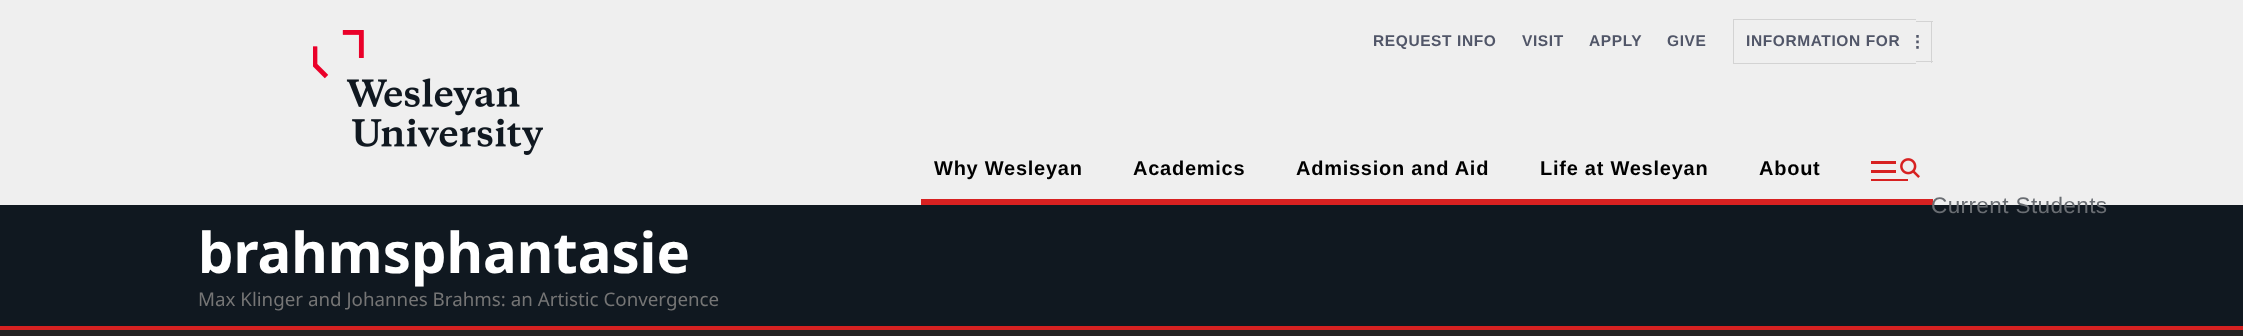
<!DOCTYPE html>
<meta charset="utf-8">
<style>body { margin: 0 } canvas { display: block }</style>
<canvas id="canvas" width="2243" height="336"></canvas>
<img id="img1" src="images/1.png" hidden>
<img id="img2" src="images/2.png" hidden>
<img id="img3" src="images/3.png" hidden>
<script>
window.onload = function () {
    const canvas = document.getElementById('canvas');
    const context = canvas.getContext('2d');
    context.miterLimit = 4;
    context.fontKerning = 'normal';

    context.fillStyle = 'rgb(239, 239, 239)';
    context.fillRect(0, 0, 2243, 336);
    context.drawImage(document.getElementById('img1'), 313, 30, 230, 125);
    context.fillStyle = 'rgb(211, 211, 211)';
    context.fillRect(1733, 19, 183, 1);
    context.fillRect(1733, 63, 183, 1);
    context.fillRect(1733, 19, 1, 45);
    context.fillRect(1916, 21, 17, 1);
    context.fillRect(1931, 21, 1, 42);
    context.fillRect(1916, 61, 17, 1);
    context.drawImage(document.getElementById('img2'), 1916, 35, 3, 14);
    context.fillStyle = 'rgb(215, 33, 33)';
    context.fillRect(921, 199, 1012, 6);
    context.drawImage(document.getElementById('img3'), 1871, 158, 49, 23);
    context.fillStyle = 'rgb(16, 24, 32)';
    context.fillRect(0, 205, 2243, 121);
    context.fillStyle = 'rgb(34, 34, 34)';
    context.fillRect(0, 330, 2243, 6);
    context.fillStyle = 'rgb(215, 33, 33)';
    context.fillRect(0, 326, 2243, 4);
    context.letterSpacing = '0.6px';
    context.font = 'bold 15.5px Liberation Sans';
    context.fillStyle = 'rgb(81, 86, 104)';
    context.fillText('REQUEST INFO', 1373, 46);
    context.fillText('VISIT', 1522, 46);
    context.fillText('APPLY', 1589, 46);
    context.fillText('GIVE', 1667, 46);
    context.fillText('INFORMATION FOR', 1746, 46);
    context.letterSpacing = '0.75px';
    context.font = 'bold 20px Liberation Sans';
    context.fillStyle = 'rgb(0, 0, 0)';
    context.fillText('Why Wesleyan', 934, 175);
    context.fillText('Academics', 1133, 175);
    context.fillText('Admission and Aid', 1296, 175);
    context.fillText('Life at Wesleyan', 1540, 175);
    context.fillText('About', 1759, 175);
    context.letterSpacing = '0.4px';
    context.font = '22.5px Liberation Sans';
    context.fillStyle = 'rgb(105, 109, 114)';
    context.fillText('Current Students', 1931, 213);
    context.letterSpacing = '0px';
    context.font = 'bold 56.25px Noto Sans';
    context.fillStyle = 'rgb(255, 255, 255)';
    context.fillText('brahmsphantasie', 198, 273);
    context.font = '18.75px Noto Sans';
    context.fillStyle = 'rgb(117, 117, 117)';
    context.fillText('Max Klinger and Johannes Brahms: an Artistic Convergence', 198, 306);
};
</script>
